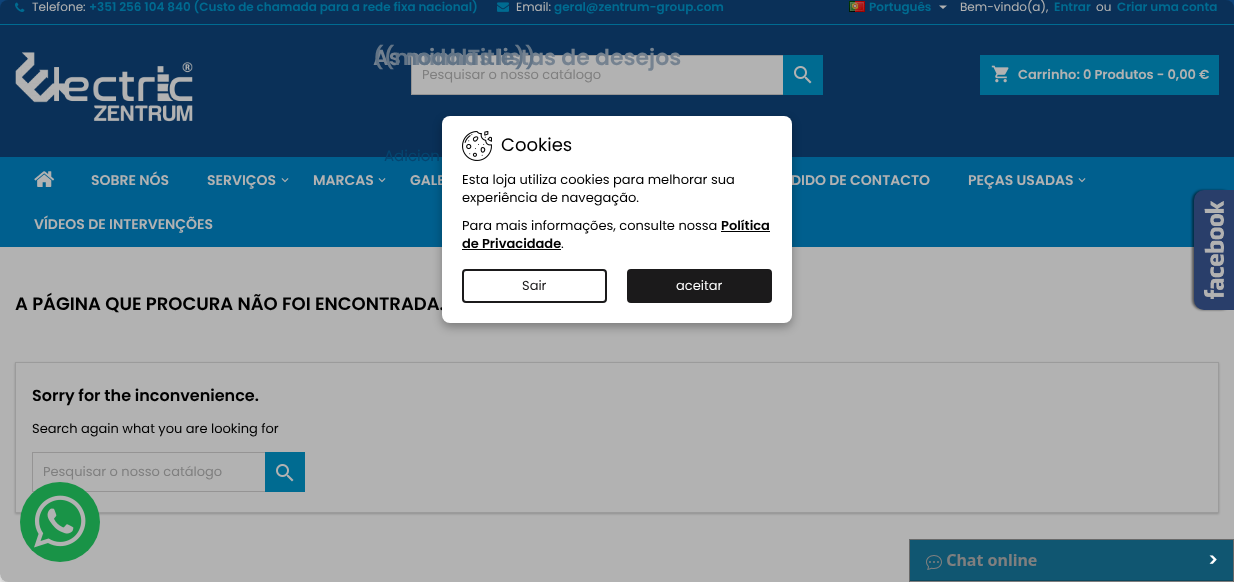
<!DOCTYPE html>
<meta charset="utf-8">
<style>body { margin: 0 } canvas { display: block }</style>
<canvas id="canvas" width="1234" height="582"></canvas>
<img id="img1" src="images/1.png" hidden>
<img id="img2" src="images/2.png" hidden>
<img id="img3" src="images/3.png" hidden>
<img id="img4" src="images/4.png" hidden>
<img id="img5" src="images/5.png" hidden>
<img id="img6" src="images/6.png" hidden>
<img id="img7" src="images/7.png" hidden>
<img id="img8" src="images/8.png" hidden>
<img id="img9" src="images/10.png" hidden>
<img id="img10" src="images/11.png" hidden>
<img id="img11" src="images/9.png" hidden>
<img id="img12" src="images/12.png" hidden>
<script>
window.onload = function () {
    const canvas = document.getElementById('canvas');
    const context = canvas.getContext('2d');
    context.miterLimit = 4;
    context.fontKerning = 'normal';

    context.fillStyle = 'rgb(255, 255, 255)';
    context.fillRect(0, 0, 1234, 582);
    context.fillStyle = 'rgb(15, 70, 126)';
    context.fillRect(0, 0, 1234, 24);
    context.fillStyle = 'rgb(0, 154, 208)';
    context.fillRect(0, 24, 1234, 1);
    context.drawImage(document.getElementById('img1'), 15, 2, 10, 10);
    context.drawImage(document.getElementById('img2'), 497, 2, 12, 10);
    context.drawImage(document.getElementById('img3'), 849, 1, 16, 11);
    context.fillStyle = 'rgb(255, 255, 255)';
    context.beginPath();
    context.moveTo(939, 5.5);
    context.lineTo(947, 5.5);
    context.lineTo(943, 9);
    context.closePath();
    context.fill();
    context.fillStyle = 'rgb(15, 70, 126)';
    context.fillRect(0, 25, 1234, 132);
    context.drawImage(document.getElementById('img4'), 15, 52, 178, 70);
    context.fillStyle = 'rgb(255, 255, 255)';
    context.fillRect(412, 56, 371, 38);
    context.strokeStyle = 'rgb(214, 212, 212)';
    context.strokeRect(411.5, 55.5, 411, 39);
    context.fillStyle = 'rgb(0, 154, 208)';
    context.fillRect(783, 55, 40, 40);
    context.drawImage(document.getElementById('img5'), 794, 66, 18, 18);
    context.fillRect(980, 55, 239, 40);
    context.drawImage(document.getElementById('img6'), 991, 65, 18, 18);
    context.fillStyle = 'rgb(0, 136, 204)';
    context.fillRect(0, 157, 1234, 90);
    context.drawImage(document.getElementById('img7'), 34, 171, 21, 16);
    context.drawImage(document.getElementById('img8'), 281, 178, 8, 5);
    context.drawImage(document.getElementById('img8'), 378, 178, 8, 5);
    context.drawImage(document.getElementById('img8'), 1078, 178, 8, 5);
    context.save();
    context.beginPath();
    context.moveTo(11, 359);
    context.lineTo(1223, 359);
    context.lineTo(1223, 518);
    context.lineTo(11, 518);
    context.closePath();
    context.moveTo(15, 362);
    context.lineTo(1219, 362);
    context.lineTo(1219, 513);
    context.lineTo(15, 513);
    context.closePath();
    context.clip('evenodd');
    context.fillStyle = 'rgba(0, 0, 0, 0.2)';
    context.filter = 'blur(1px)';
    context.beginPath();
    context.rect(15, 363, 1204, 151);
    context.fill();
    context.filter = 'none';
    context.restore();
    context.strokeStyle = 'rgb(223, 223, 223)';
    context.strokeRect(15.5, 362.5, 1203, 150);
    context.strokeStyle = 'rgb(214, 212, 212)';
    context.strokeRect(32.5, 452.5, 272, 39);
    context.fillStyle = 'rgb(37, 211, 102)';
    context.beginPath();
    context.arc(60, 522, 40, 0, 2 * Math.PI);
    context.fill();
    context.drawImage(document.getElementById('img9'), 34, 495, 52, 53);
    context.fillStyle = 'rgba(0, 0, 0, 0.5)';
    context.filter = 'blur(1px)';
    context.beginPath();
    context.roundRect(1192, 190, 40, 120, 10);
    context.fill();
    context.filter = 'none';
    context.fillStyle = 'rgb(59, 89, 152)';
    context.beginPath();
    context.roundRect(1194, 190, 40, 120, [10, 0, 0, 10]);
    context.fill();
    context.drawImage(document.getElementById('img10'), 1204, 201, 20, 98);
    context.fillStyle = 'rgb(0, 154, 208)';
    context.fillRect(265, 452, 40, 40);
    context.drawImage(document.getElementById('img5'), 276, 464, 18, 18);
    context.save();
    context.beginPath();
    context.moveTo(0, 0);
    context.lineTo(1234, 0);
    context.lineTo(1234, 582);
    context.lineTo(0, 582);
    context.closePath();
    context.moveTo(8, 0);
    context.lineTo(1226, 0);
    context.bezierCurveTo(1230.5, 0, 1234, 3.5, 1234, 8);
    context.lineTo(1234, 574);
    context.bezierCurveTo(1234, 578.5, 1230.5, 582, 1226, 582);
    context.lineTo(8, 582);
    context.bezierCurveTo(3.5, 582, 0, 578.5, 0, 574);
    context.lineTo(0, 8);
    context.bezierCurveTo(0, 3.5, 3.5, 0, 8, 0);
    context.closePath();
    context.clip('evenodd');
    context.fillStyle = 'rgba(0, 0, 0, 0.3)';
    context.filter = 'blur(5px)';
    context.beginPath();
    context.roundRect(0, 4, 1234, 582, 8);
    context.fill();
    context.filter = 'none';
    context.restore();
    context.font = '12px Poppins';
    context.fillStyle = 'rgb(255, 255, 255)';
    context.fillText('Telefone:', 32, 11);
    context.font = '600 12px Poppins';
    context.fillStyle = 'rgb(0, 154, 208)';
    context.fillText('+351 256 104 840 (Custo de chamada para a rede fixa nacional)', 89, 11);
    context.font = '12px Poppins';
    context.fillStyle = 'rgb(255, 255, 255)';
    context.fillText('Email:', 516, 11);
    context.font = '600 12px Poppins';
    context.fillStyle = 'rgb(0, 154, 208)';
    context.fillText('geral@zentrum-group.com', 554, 11);
    context.fillText('Português', 869, 11);
    context.font = '12px Poppins';
    context.fillStyle = 'rgb(255, 255, 255)';
    context.fillText('Bem-vindo(a),', 960, 11);
    context.font = '600 12px Poppins';
    context.fillStyle = 'rgb(0, 154, 208)';
    context.fillText('Entrar', 1054, 11);
    context.font = '12px Poppins';
    context.fillStyle = 'rgb(255, 255, 255)';
    context.fillText('ou', 1096, 11);
    context.font = '600 12px Poppins';
    context.fillStyle = 'rgb(0, 154, 208)';
    context.fillText('Criar uma conta', 1117, 11);
    context.font = '13px Poppins';
    context.fillStyle = 'rgb(183, 183, 183)';
    context.fillText('Pesquisar o nosso catálogo', 422, 79);
    context.font = '600 13px Poppins';
    context.fillStyle = 'rgb(255, 255, 255)';
    context.fillText('Carrinho: 0 Produtos - 0,00 €', 1018, 79);
    context.font = '600 14px Poppins';
    context.fillText('SOBRE NÓS', 91, 185);
    context.fillText('SERVIÇOS', 207, 185);
    context.fillText('MARCAS', 313, 185);
    context.fillText('GALE', 410, 185);
    context.fillText('DIDO DE CONTACTO', 791, 185);
    context.fillText('PEÇAS USADAS', 968, 185);
    context.fillText('VÍDEOS DE INTERVENÇÕES', 34, 229);
    context.font = '600 22px Poppins';
    context.fillStyle = 'rgb(168, 187, 207)';
    context.fillText('As minhas listas de desejos', 373, 65);
    context.fillStyle = 'rgb(141, 166, 193)';
    context.fillText('((modalTitle))', 373, 65);
    context.font = '15px Poppins';
    context.fillStyle = 'rgb(8, 99, 160)';
    context.fillText('Adicion', 384, 161);
    context.font = '600 18px Poppins';
    context.fillStyle = 'rgb(0, 0, 0)';
    context.fillText('A PÁGINA QUE PROCURA NÃO FOI ENCONTRADA.', 15, 310);
    context.font = '600 16px Poppins';
    context.fillText('Sorry for the inconvenience.', 32, 401);
    context.font = '13px Poppins';
    context.fillText('Search again what you are looking for', 32, 433);
    context.fillStyle = 'rgb(183, 183, 183)';
    context.fillText('Pesquisar o nosso catálogo', 43, 476);
    context.fillStyle = 'rgba(0, 0, 0, 0.3)';
    context.beginPath();
    context.roundRect(0, 0, 1234, 582, 8);
    context.fill();
    context.filter = 'blur(5px)';
    context.beginPath();
    context.roundRect(442, 120, 350, 207, 8);
    context.fill();
    context.filter = 'none';
    context.fillStyle = 'rgb(255, 255, 255)';
    context.beginPath();
    context.roundRect(442, 116, 350, 207, 8);
    context.fill();
    context.drawImage(document.getElementById('img11'), 462, 131, 30, 30);
    context.fillStyle = 'rgb(27, 26, 27)';
    context.beginPath();
    context.roundRect(628, 270, 143, 32, 3);
    context.fill();
    context.strokeStyle = 'rgb(27, 26, 27)';
    context.lineWidth = 2;
    context.stroke();
    context.fillStyle = 'rgb(255, 255, 255)';
    context.fillText('aceitar', 676, 290);
    context.beginPath();
    context.roundRect(463, 270, 143, 32, 3);
    context.stroke();
    context.fillStyle = 'rgb(27, 26, 27)';
    context.fillText('Sair', 522, 290);
    context.fillStyle = 'rgb(0, 0, 0)';
    context.fillText('.', 561, 248);
    context.font = '600 13px Poppins';
    context.fillText('de Privacidade', 462, 248);
    context.fillRect(462, 249, 99, 1);
    context.fillText('Política', 721, 230);
    context.fillRect(721, 231, 49, 1);
    context.font = '13px Poppins';
    context.fillText('Para mais informações, consulte nossa', 462, 230);
    context.fillText('experiência de navegação.', 462, 202);
    context.fillText('Esta loja utiliza cookies para melhorar sua', 462, 184);
    context.font = '18px Poppins';
    context.fillText('Cookies', 501, 151);
    context.drawImage(document.getElementById('img12'), 909, 539, 325, 43);
    context.font = '600 18px Poppins';
    context.fillStyle = 'rgb(255, 255, 255)';
    context.fillText('>', 1208, 566);
};
</script>
